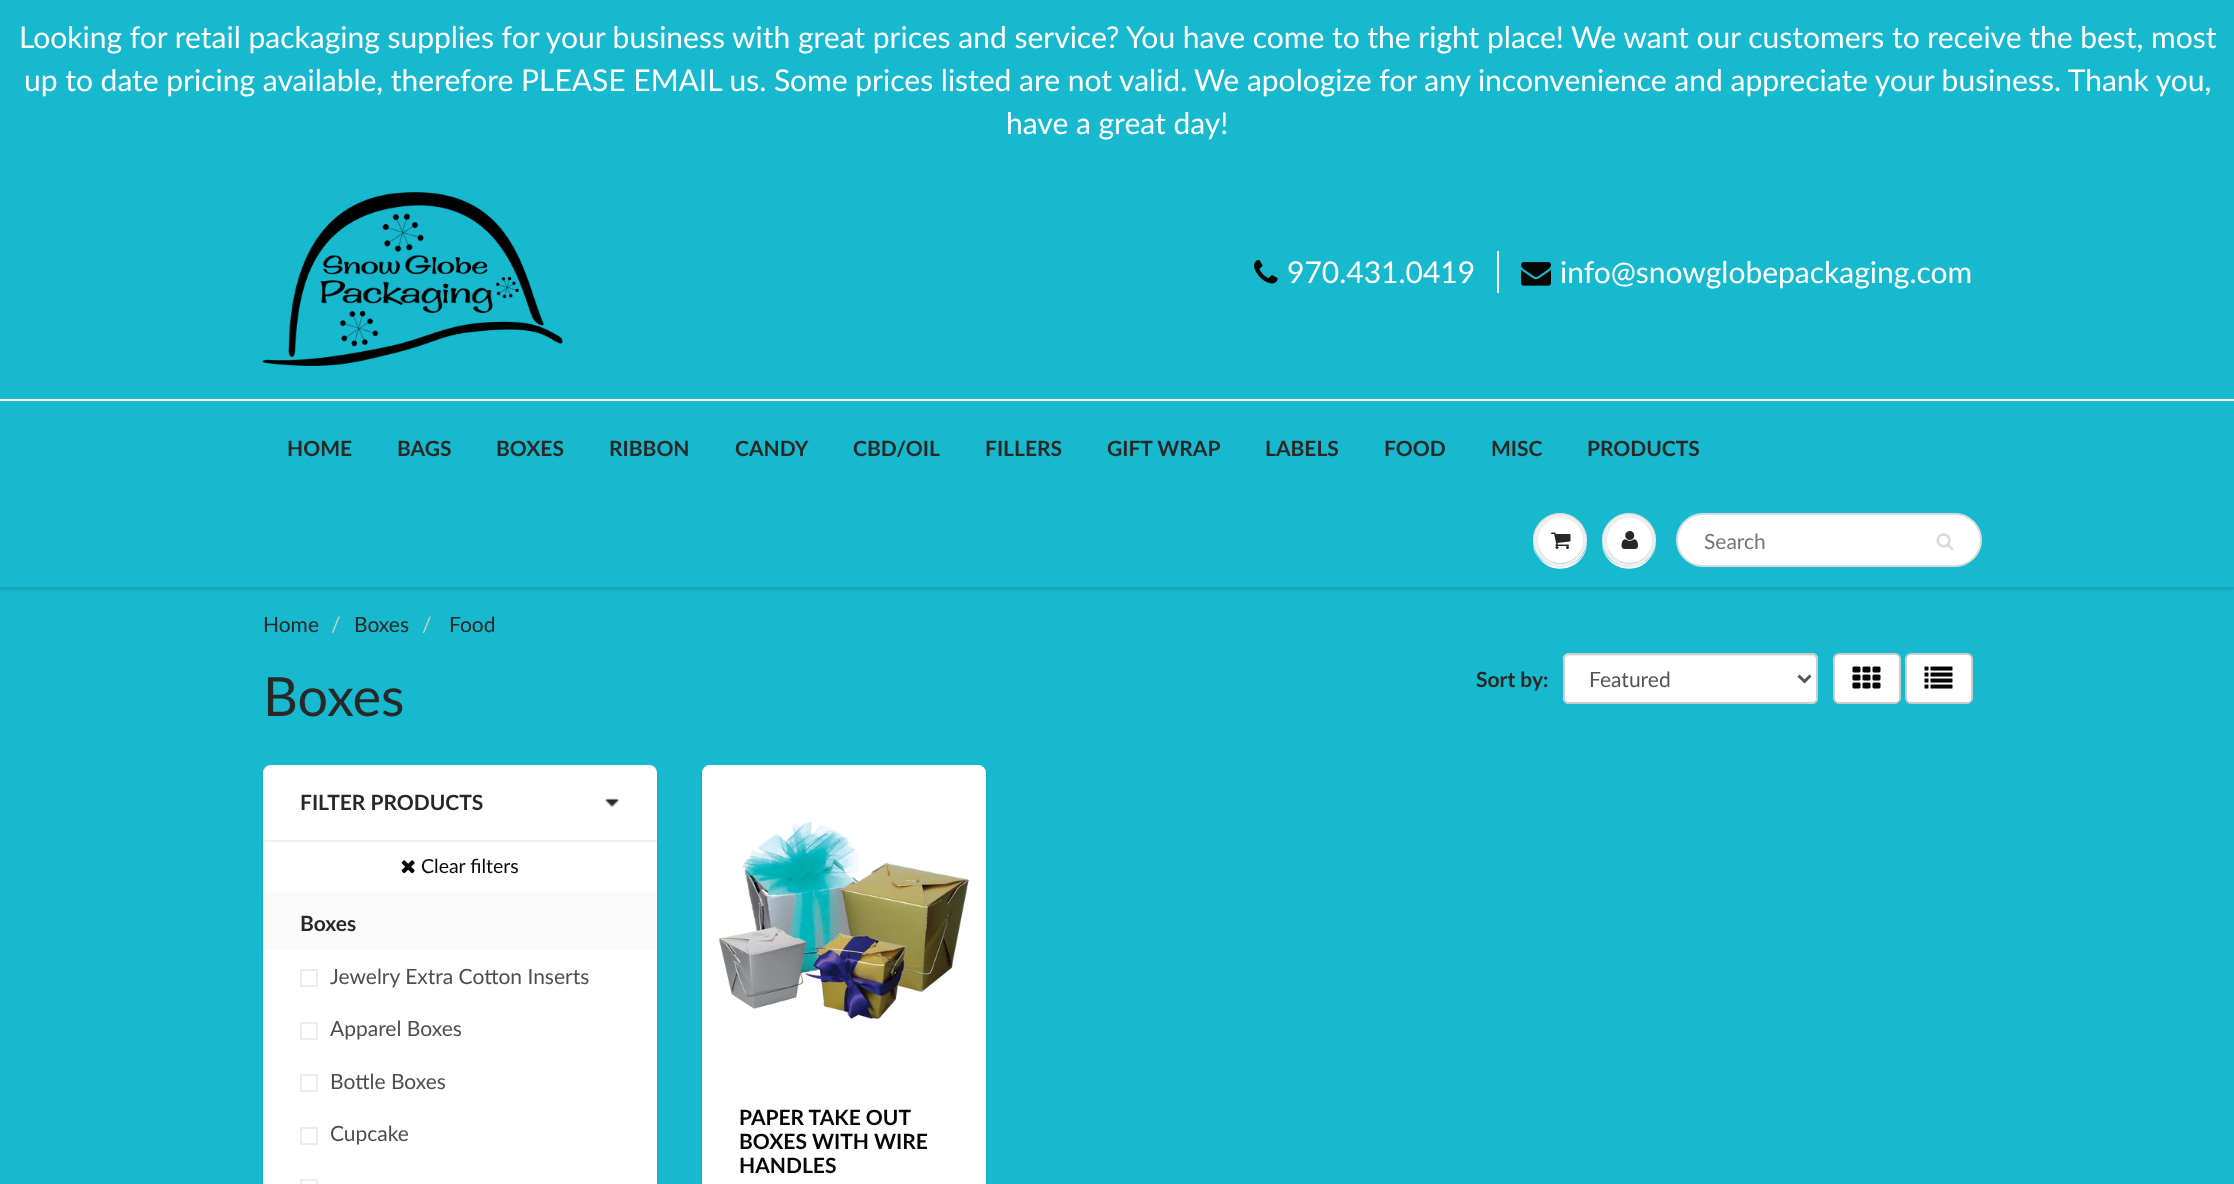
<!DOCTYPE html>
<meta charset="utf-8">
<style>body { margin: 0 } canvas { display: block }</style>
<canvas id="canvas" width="2234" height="1184"></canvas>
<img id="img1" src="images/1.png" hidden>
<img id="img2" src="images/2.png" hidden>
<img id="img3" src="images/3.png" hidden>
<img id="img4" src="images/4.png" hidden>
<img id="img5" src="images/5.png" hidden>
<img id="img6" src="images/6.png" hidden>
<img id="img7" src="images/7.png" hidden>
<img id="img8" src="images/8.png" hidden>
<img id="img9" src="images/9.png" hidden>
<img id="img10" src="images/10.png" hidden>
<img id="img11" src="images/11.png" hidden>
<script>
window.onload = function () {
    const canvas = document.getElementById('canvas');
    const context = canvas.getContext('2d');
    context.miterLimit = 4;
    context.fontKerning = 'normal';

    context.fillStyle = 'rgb(23, 185, 207)';
    context.fillRect(0, 0, 2234, 1184);
    context.drawImage(document.getElementById('img1'), 262, 192, 301, 174);
    context.drawImage(document.getElementById('img2'), 1254, 260, 24, 24);
    context.fillStyle = 'rgb(255, 255, 255)';
    context.fillRect(1497, 251, 2, 42);
    context.drawImage(document.getElementById('img3'), 1521, 262, 30, 24);
    context.fillStyle = 'rgba(11, 25, 28, 0.12)';
    context.filter = 'blur(1.5px)';
    context.beginPath();
    context.rect(0, 402, 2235, 188);
    context.fill();
    context.filter = 'none';
    context.fillStyle = 'rgb(23, 185, 207)';
    context.fillRect(0, 401, 2234, 186);
    context.fillStyle = 'rgb(255, 255, 255)';
    context.fillRect(0, 399, 2234, 2);
    context.beginPath();
    context.moveTo(1587, 541);
    context.bezierCurveTo(1586, 575, 1534, 575, 1533, 541);
    context.bezierCurveTo(1533, 547, 1534, 552, 1538, 557);
    context.bezierCurveTo(1553, 579, 1588, 568, 1587, 541);
    context.closePath();
    context.fill();
    context.fillStyle = 'rgb(237, 239, 239)';
    context.beginPath();
    context.arc(1560, 540, 27, 0, 2 * Math.PI);
    context.fill();
    context.fillStyle = 'rgb(201, 203, 203)';
    context.beginPath();
    context.moveTo(1560, 514);
    context.bezierCurveTo(1575, 514, 1586, 526, 1587, 541);
    context.bezierCurveTo(1587, 535, 1586, 530, 1582, 525);
    context.bezierCurveTo(1567, 503, 1532, 514, 1533, 541);
    context.bezierCurveTo(1534, 526, 1545, 514, 1560, 514);
    context.closePath();
    context.fill();
    context.beginPath();
    context.moveTo(1539, 548);
    context.bezierCurveTo(1540, 552, 1543, 557, 1547, 559);
    context.bezierCurveTo(1565, 573, 1589, 554, 1582, 534);
    context.bezierCurveTo(1590, 561, 1549, 575, 1539, 548);
    context.closePath();
    context.fill();
    context.fillStyle = 'rgb(255, 255, 255)';
    context.beginPath();
    context.arc(1560.5, 540.5, 22.5, 0, 2 * Math.PI);
    context.fill();
    context.beginPath();
    context.moveTo(1560, 519);
    context.bezierCurveTo(1578, 519, 1585, 536, 1581, 549);
    context.bezierCurveTo(1590, 527, 1562, 508, 1545, 524);
    context.bezierCurveTo(1549, 521, 1554, 519, 1560, 519);
    context.closePath();
    context.fill();
    context.drawImage(document.getElementById('img4'), 1551, 532, 20, 17);
    context.beginPath();
    context.moveTo(1656, 541);
    context.bezierCurveTo(1655, 575, 1603, 575, 1602, 541);
    context.bezierCurveTo(1601, 568, 1636, 579, 1651, 557);
    context.bezierCurveTo(1655, 552, 1656, 547, 1656, 541);
    context.closePath();
    context.fill();
    context.fillStyle = 'rgb(237, 239, 239)';
    context.beginPath();
    context.arc(1629, 540, 27, 0, 2 * Math.PI);
    context.fill();
    context.fillStyle = 'rgb(201, 203, 203)';
    context.beginPath();
    context.moveTo(1629, 514);
    context.bezierCurveTo(1644, 514, 1655, 526, 1656, 541);
    context.bezierCurveTo(1657, 514, 1622, 503, 1607, 525);
    context.bezierCurveTo(1603, 530, 1602, 535, 1602, 541);
    context.bezierCurveTo(1603, 526, 1614, 514, 1629, 514);
    context.closePath();
    context.fill();
    context.beginPath();
    context.moveTo(1608, 548);
    context.bezierCurveTo(1609, 552, 1612, 557, 1616, 559);
    context.bezierCurveTo(1634, 573, 1658, 554, 1651, 534);
    context.bezierCurveTo(1659, 561, 1618, 575, 1608, 548);
    context.closePath();
    context.fill();
    context.fillStyle = 'rgb(255, 255, 255)';
    context.beginPath();
    context.arc(1629.5, 540.5, 22.5, 0, 2 * Math.PI);
    context.fill();
    context.beginPath();
    context.moveTo(1629, 519);
    context.bezierCurveTo(1647, 519, 1654, 536, 1650, 549);
    context.bezierCurveTo(1659, 527, 1631, 508, 1614, 524);
    context.bezierCurveTo(1618, 521, 1623, 519, 1629, 519);
    context.closePath();
    context.fill();
    context.drawImage(document.getElementById('img5'), 1621, 531, 17, 18);
    context.beginPath();
    context.roundRect(1677, 514, 304, 52, 26);
    context.fill();
    context.strokeStyle = 'rgb(215, 219, 219)';
    context.lineWidth = 2;
    context.stroke();
    context.drawImage(document.getElementById('img6'), 1936, 533, 18, 17);
    context.fillStyle = 'rgba(11, 25, 28, 0.1)';
    context.filter = 'blur(1.5px)';
    context.beginPath();
    context.roundRect(263, 768, 394, 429, 8);
    context.fill();
    context.filter = 'none';
    context.fillStyle = 'rgb(255, 255, 255)';
    context.beginPath();
    context.roundRect(263, 765, 394, 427, 8);
    context.fill();
    context.fillStyle = 'rgb(239, 239, 239)';
    context.fillRect(263, 840, 394, 2);
    context.drawImage(document.getElementById('img7'), 604, 798, 16, 9);
    context.drawImage(document.getElementById('img8'), 401, 860, 14, 14);
    context.fillStyle = 'rgb(250, 250, 250)';
    context.fillRect(263, 891, 394, 59);
    context.strokeStyle = 'rgb(236, 236, 236)';
    context.strokeRect(301, 970, 16, 16);
    context.strokeRect(301, 1023, 16, 16);
    context.strokeRect(301, 1075, 16, 16);
    context.strokeRect(301, 1128, 16, 16);
    context.strokeRect(301, 1180, 16, 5);
    context.fillStyle = 'rgb(255, 255, 255)';
    context.beginPath();
    context.roundRect(1563, 653, 255, 51, 6);
    context.fill();
    context.fillStyle = 'rgb(236, 236, 236)';
    context.beginPath();
    context.moveTo(1569, 656);
    context.lineTo(1812, 656);
    context.bezierCurveTo(1814, 656, 1816, 658, 1816, 660);
    context.lineTo(1816, 700);
    context.bezierCurveTo(1817, 699, 1817, 698, 1817, 697);
    context.lineTo(1817, 659);
    context.bezierCurveTo(1817, 656, 1815, 654, 1812, 654);
    context.lineTo(1570, 654);
    context.bezierCurveTo(1568, 654, 1566, 656, 1565, 658);
    context.bezierCurveTo(1566, 657, 1568, 656, 1569, 656);
    context.closePath();
    context.fill();
    context.beginPath();
    context.roundRect(1564, 654, 253, 49, 5);
    context.strokeStyle = 'rgb(204, 204, 204)';
    context.stroke();
    context.beginPath();
    context.moveTo(1798.5, 675.5);
    context.lineTo(1804.5, 681.5);
    context.lineTo(1810.5, 675.5);
    context.strokeStyle = 'rgb(85, 85, 85)';
    context.lineWidth = 3;
    context.stroke();
    context.fillStyle = 'rgb(255, 255, 255)';
    context.beginPath();
    context.roundRect(1834, 654, 66, 49, 5);
    context.fill();
    context.strokeStyle = 'rgb(204, 204, 204)';
    context.lineWidth = 2;
    context.stroke();
    context.drawImage(document.getElementById('img9'), 1852, 666, 29, 23);
    context.beginPath();
    context.roundRect(1906, 654, 66, 49, 5);
    context.fill();
    context.stroke();
    context.drawImage(document.getElementById('img10'), 1924, 666, 29, 23);
    context.fillStyle = 'rgba(11, 25, 28, 0.1)';
    context.filter = 'blur(1.5px)';
    context.beginPath();
    context.roundRect(702, 768, 284, 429, 8);
    context.fill();
    context.filter = 'none';
    context.fillStyle = 'rgb(255, 255, 255)';
    context.beginPath();
    context.roundRect(706, 769, 276, 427, 4);
    context.fill();
    context.strokeStyle = 'rgb(255, 255, 255)';
    context.lineWidth = 8;
    context.stroke();
    context.drawImage(document.getElementById('img11'), 718, 821, 251, 198);
    context.font = '30px Lato';
    context.fillText('Looking for retail packaging supplies for your business with great prices and service? You have come to the right place!', 19, 48);
    context.fillText('We want our customers to receive the best, most', 1571, 48);
    context.fillText('up to date pricing available, therefore PLEASE EMAIL us. Some prices listed are not valid.', 24, 91);
    context.fillText('We apologize for any inconvenience and appreciate your business. Thank you,', 1194, 91);
    context.fillText('have a great day!', 1006, 134);
    context.fillText('970.431.0419', 1287, 283);
    context.fillText('info@snowglobepackaging.com', 1560, 283);
    context.font = 'bold 21px Lato';
    context.fillStyle = 'rgb(40, 40, 39)';
    context.fillText('HOME', 287, 456);
    context.fillText('BAGS', 397, 456);
    context.fillText('BOXES', 496, 456);
    context.fillText('RIBBON', 609, 456);
    context.fillText('CANDY', 735, 456);
    context.fillText('CBD/OIL', 853, 456);
    context.fillText('FILLERS', 985, 456);
    context.fillText('GIFT WRAP', 1107, 456);
    context.fillText('LABELS', 1265, 456);
    context.fillText('FOOD', 1384, 456);
    context.fillText('MISC', 1491, 456);
    context.fillText('PRODUCTS', 1587, 456);
    context.font = '21px Lato';
    context.fillStyle = 'rgb(117, 117, 117)';
    context.fillText('Search', 1704, 549);
    context.fillStyle = 'rgb(40, 40, 39)';
    context.fillText('Home', 263, 632);
    context.fillStyle = 'rgb(204, 204, 204)';
    context.fillText('/', 331, 632);
    context.fillStyle = 'rgb(40, 40, 39)';
    context.fillText('Boxes', 354, 632);
    context.fillStyle = 'rgb(204, 204, 204)';
    context.fillText('/', 422, 632);
    context.fillStyle = 'rgb(40, 40, 39)';
    context.fillText('Food', 449, 632);
    context.font = 'bold 21px Lato';
    context.fillText('FILTER PRODUCTS', 300, 810);
    context.font = '19.5px Lato';
    context.fillStyle = 'rgb(7, 6, 6)';
    context.fillText('Clear filters', 421, 873);
    context.font = 'bold 21px Lato';
    context.fillStyle = 'rgb(40, 40, 39)';
    context.fillText('Boxes', 300, 931);
    context.font = '21px Lato';
    context.fillStyle = 'rgb(78, 78, 78)';
    context.fillText('Jewelry Extra Cotton Inserts', 330, 984);
    context.fillText('Apparel Boxes', 330, 1036);
    context.fillText('Bottle Boxes', 330, 1089);
    context.fillText('Cupcake', 330, 1141);
    context.font = 'bold 21px Lato';
    context.fillStyle = 'rgb(40, 40, 39)';
    context.fillText('Sort by:', 1476, 687);
    context.font = '21px Lato';
    context.fillStyle = 'rgb(85, 85, 85)';
    context.fillText('Featured', 1589, 687);
    context.font = 'bold 21px Lato';
    context.fillStyle = 'rgb(7, 6, 6)';
    context.fillText('PAPER TAKE OUT', 739, 1125);
    context.fillText('BOXES WITH WIRE', 739, 1149);
    context.fillText('HANDLES', 739, 1173);
    context.font = '54px Lato';
    context.fillStyle = 'rgb(40, 40, 39)';
    context.fillText('Boxes', 263, 716);
};
</script>
